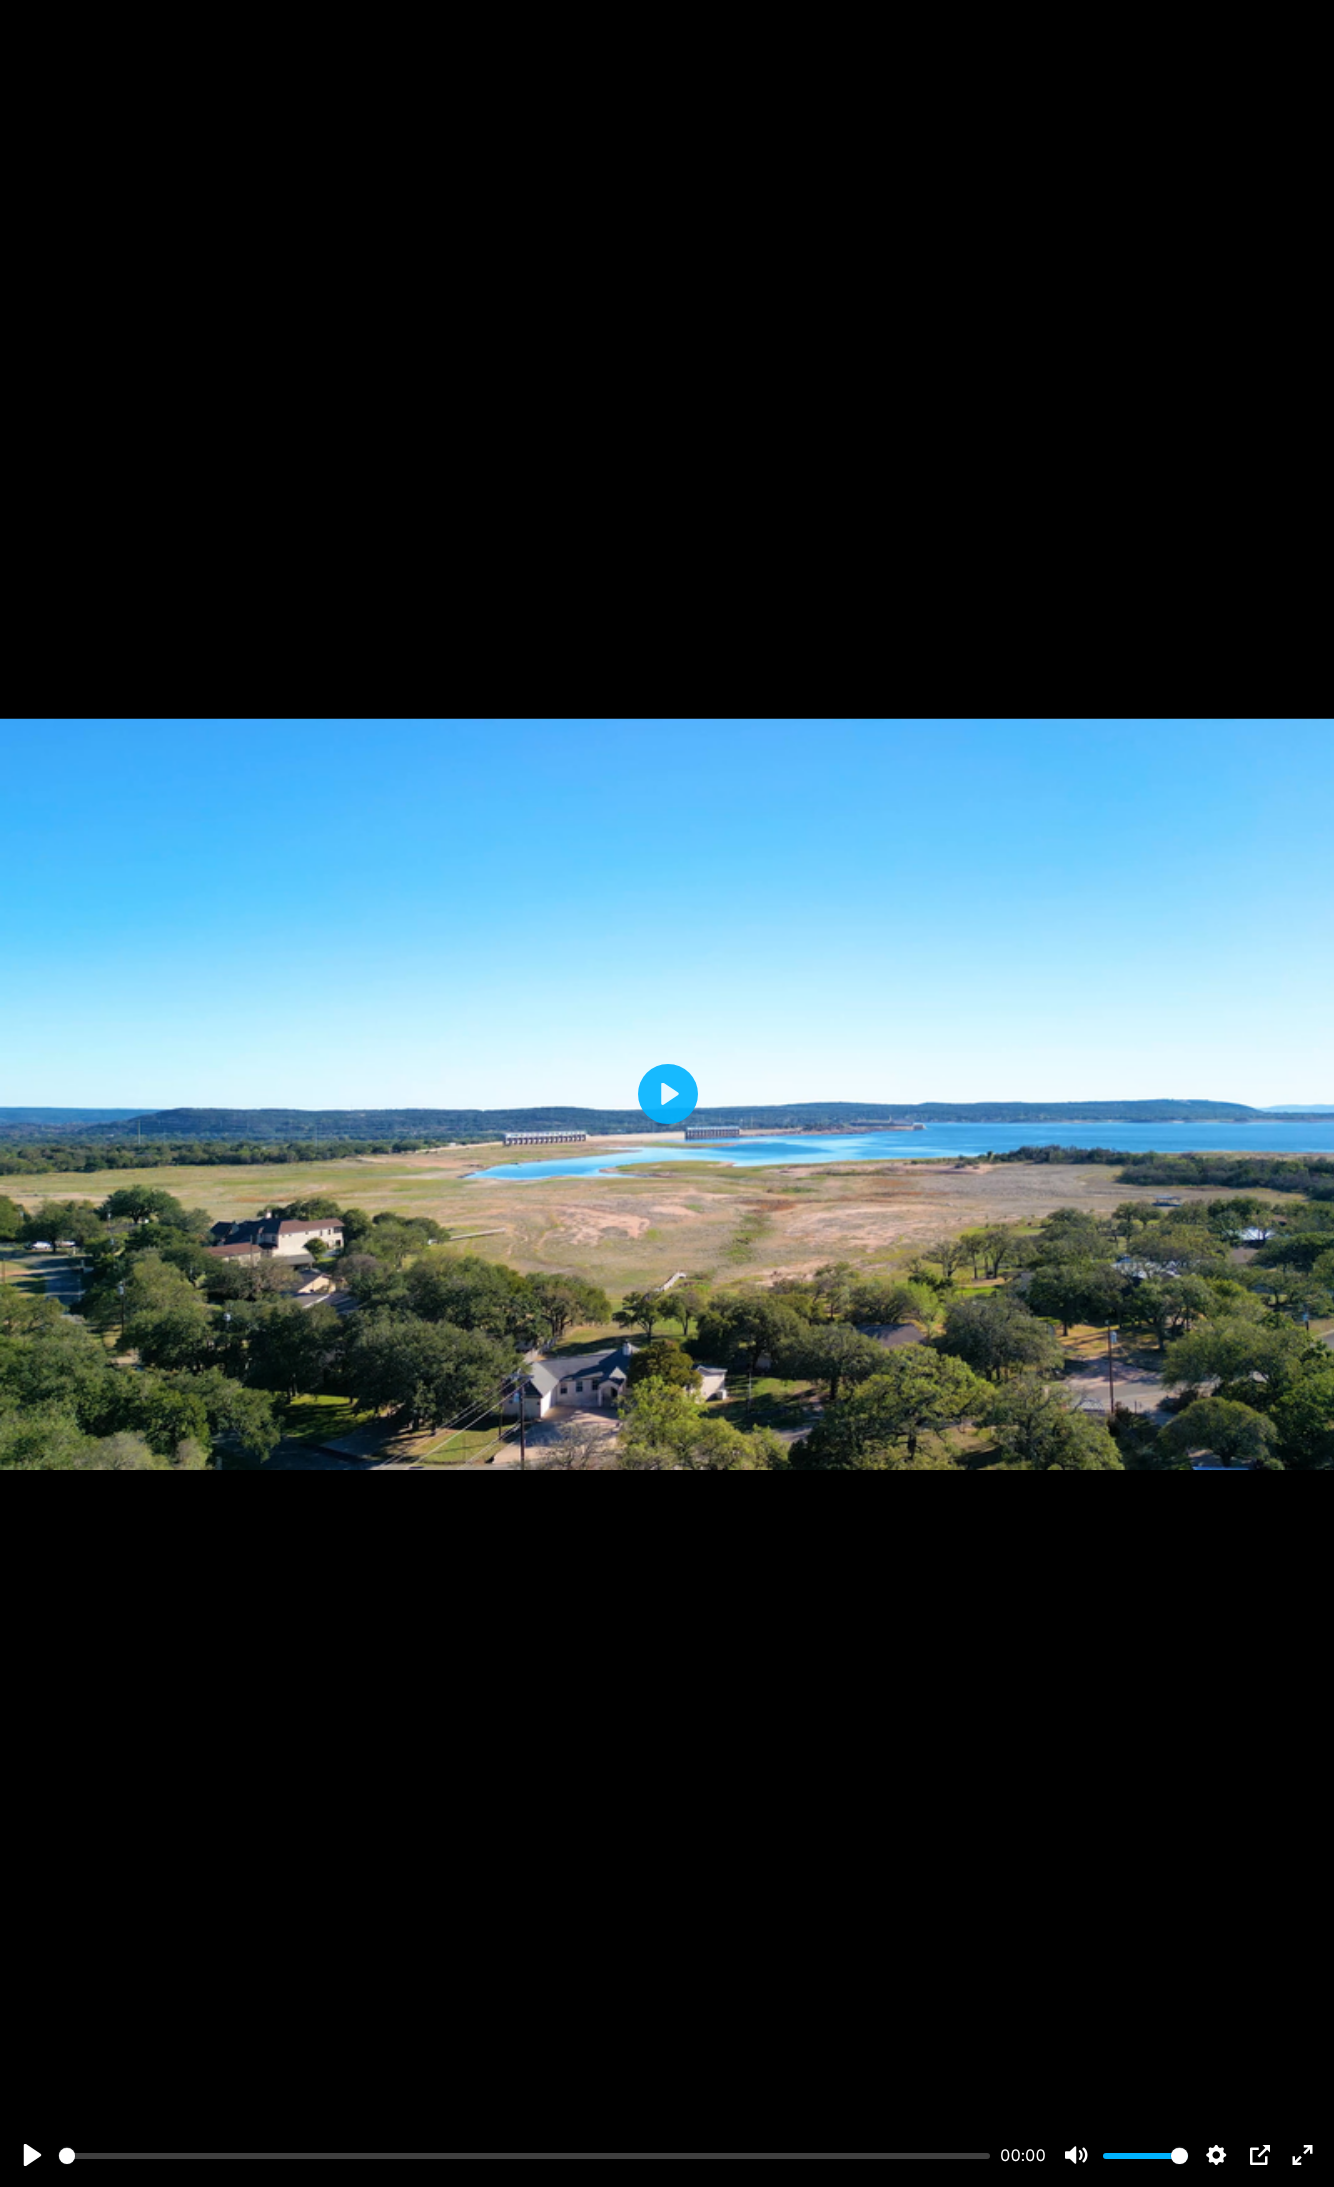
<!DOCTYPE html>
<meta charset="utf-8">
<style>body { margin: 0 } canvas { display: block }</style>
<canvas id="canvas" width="1334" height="2187"></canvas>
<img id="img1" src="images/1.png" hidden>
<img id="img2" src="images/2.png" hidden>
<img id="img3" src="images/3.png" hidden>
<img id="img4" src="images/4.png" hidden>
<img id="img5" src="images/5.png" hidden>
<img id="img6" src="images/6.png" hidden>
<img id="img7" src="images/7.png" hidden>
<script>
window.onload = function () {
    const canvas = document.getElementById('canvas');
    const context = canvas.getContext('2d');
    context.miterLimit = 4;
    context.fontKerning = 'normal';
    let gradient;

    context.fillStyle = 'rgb(0, 0, 0)';
    context.fillRect(0, 0, 1334, 2187);
    context.drawImage(document.getElementById('img1'), 0, 718, 1334, 1447);
    context.fillStyle = 'rgba(0, 179, 255, 0.9)';
    context.beginPath();
    context.arc(668, 1094, 30, 0, 2 * Math.PI);
    context.fill();
    context.drawImage(document.getElementById('img2'), 661, 1083, 18, 22);
    gradient = context.createLinearGradient(668, 2091, 668, 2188);
    gradient.addColorStop(0, 'rgba(0, 0, 0, 0)');
    gradient.addColorStop(1, 'rgba(0, 0, 0, 0.75)');
    context.fillStyle = gradient;
    context.fillRect(58, 2147, 1130, 18);
    context.drawImage(document.getElementById('img3'), 23, 2144, 19, 22);
    context.fillStyle = 'rgba(255, 255, 255, 0.25)';
    context.beginPath();
    context.roundRect(59, 2153, 931, 6, 3);
    context.fill();
    context.beginPath();
    context.roundRect(58.5, 2146.5, 17, 18, 8.5);
    context.strokeStyle = 'rgba(35, 40, 47, 0.2)';
    context.stroke();
    context.fillStyle = 'rgba(35, 40, 47, 0.15)';
    context.filter = 'blur(0.5px)';
    context.beginPath();
    context.roundRect(59, 2149, 16, 16, 8);
    context.fill();
    context.filter = 'none';
    context.fillStyle = 'rgb(255, 255, 255)';
    context.beginPath();
    context.arc(67, 2156, 8, 0, 2 * Math.PI);
    context.fill();
    context.drawImage(document.getElementById('img4'), 1065, 2146, 23, 18);
    context.fillStyle = 'rgb(0, 179, 255)';
    context.beginPath();
    context.roundRect(1103, 2153, 85, 6, 3);
    context.fill();
    context.beginPath();
    context.arc(1179.5, 2155.5, 9, 0, 2 * Math.PI);
    context.stroke();
    context.fillStyle = 'rgba(35, 40, 47, 0.15)';
    context.filter = 'blur(0.5px)';
    context.beginPath();
    context.roundRect(1171, 2149, 17, 16, 8);
    context.fill();
    context.filter = 'none';
    context.fillStyle = 'rgb(255, 255, 255)';
    context.beginPath();
    context.roundRect(1171, 2148, 17, 16, 8);
    context.fill();
    context.drawImage(document.getElementById('img5'), 1206, 2145, 21, 20);
    context.drawImage(document.getElementById('img6'), 1250, 2145, 20, 20);
    context.drawImage(document.getElementById('img7'), 1292, 2145, 21, 20);
    context.font = '16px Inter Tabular';
    context.fillText('00:00', 1000, 2161);
};
</script>
